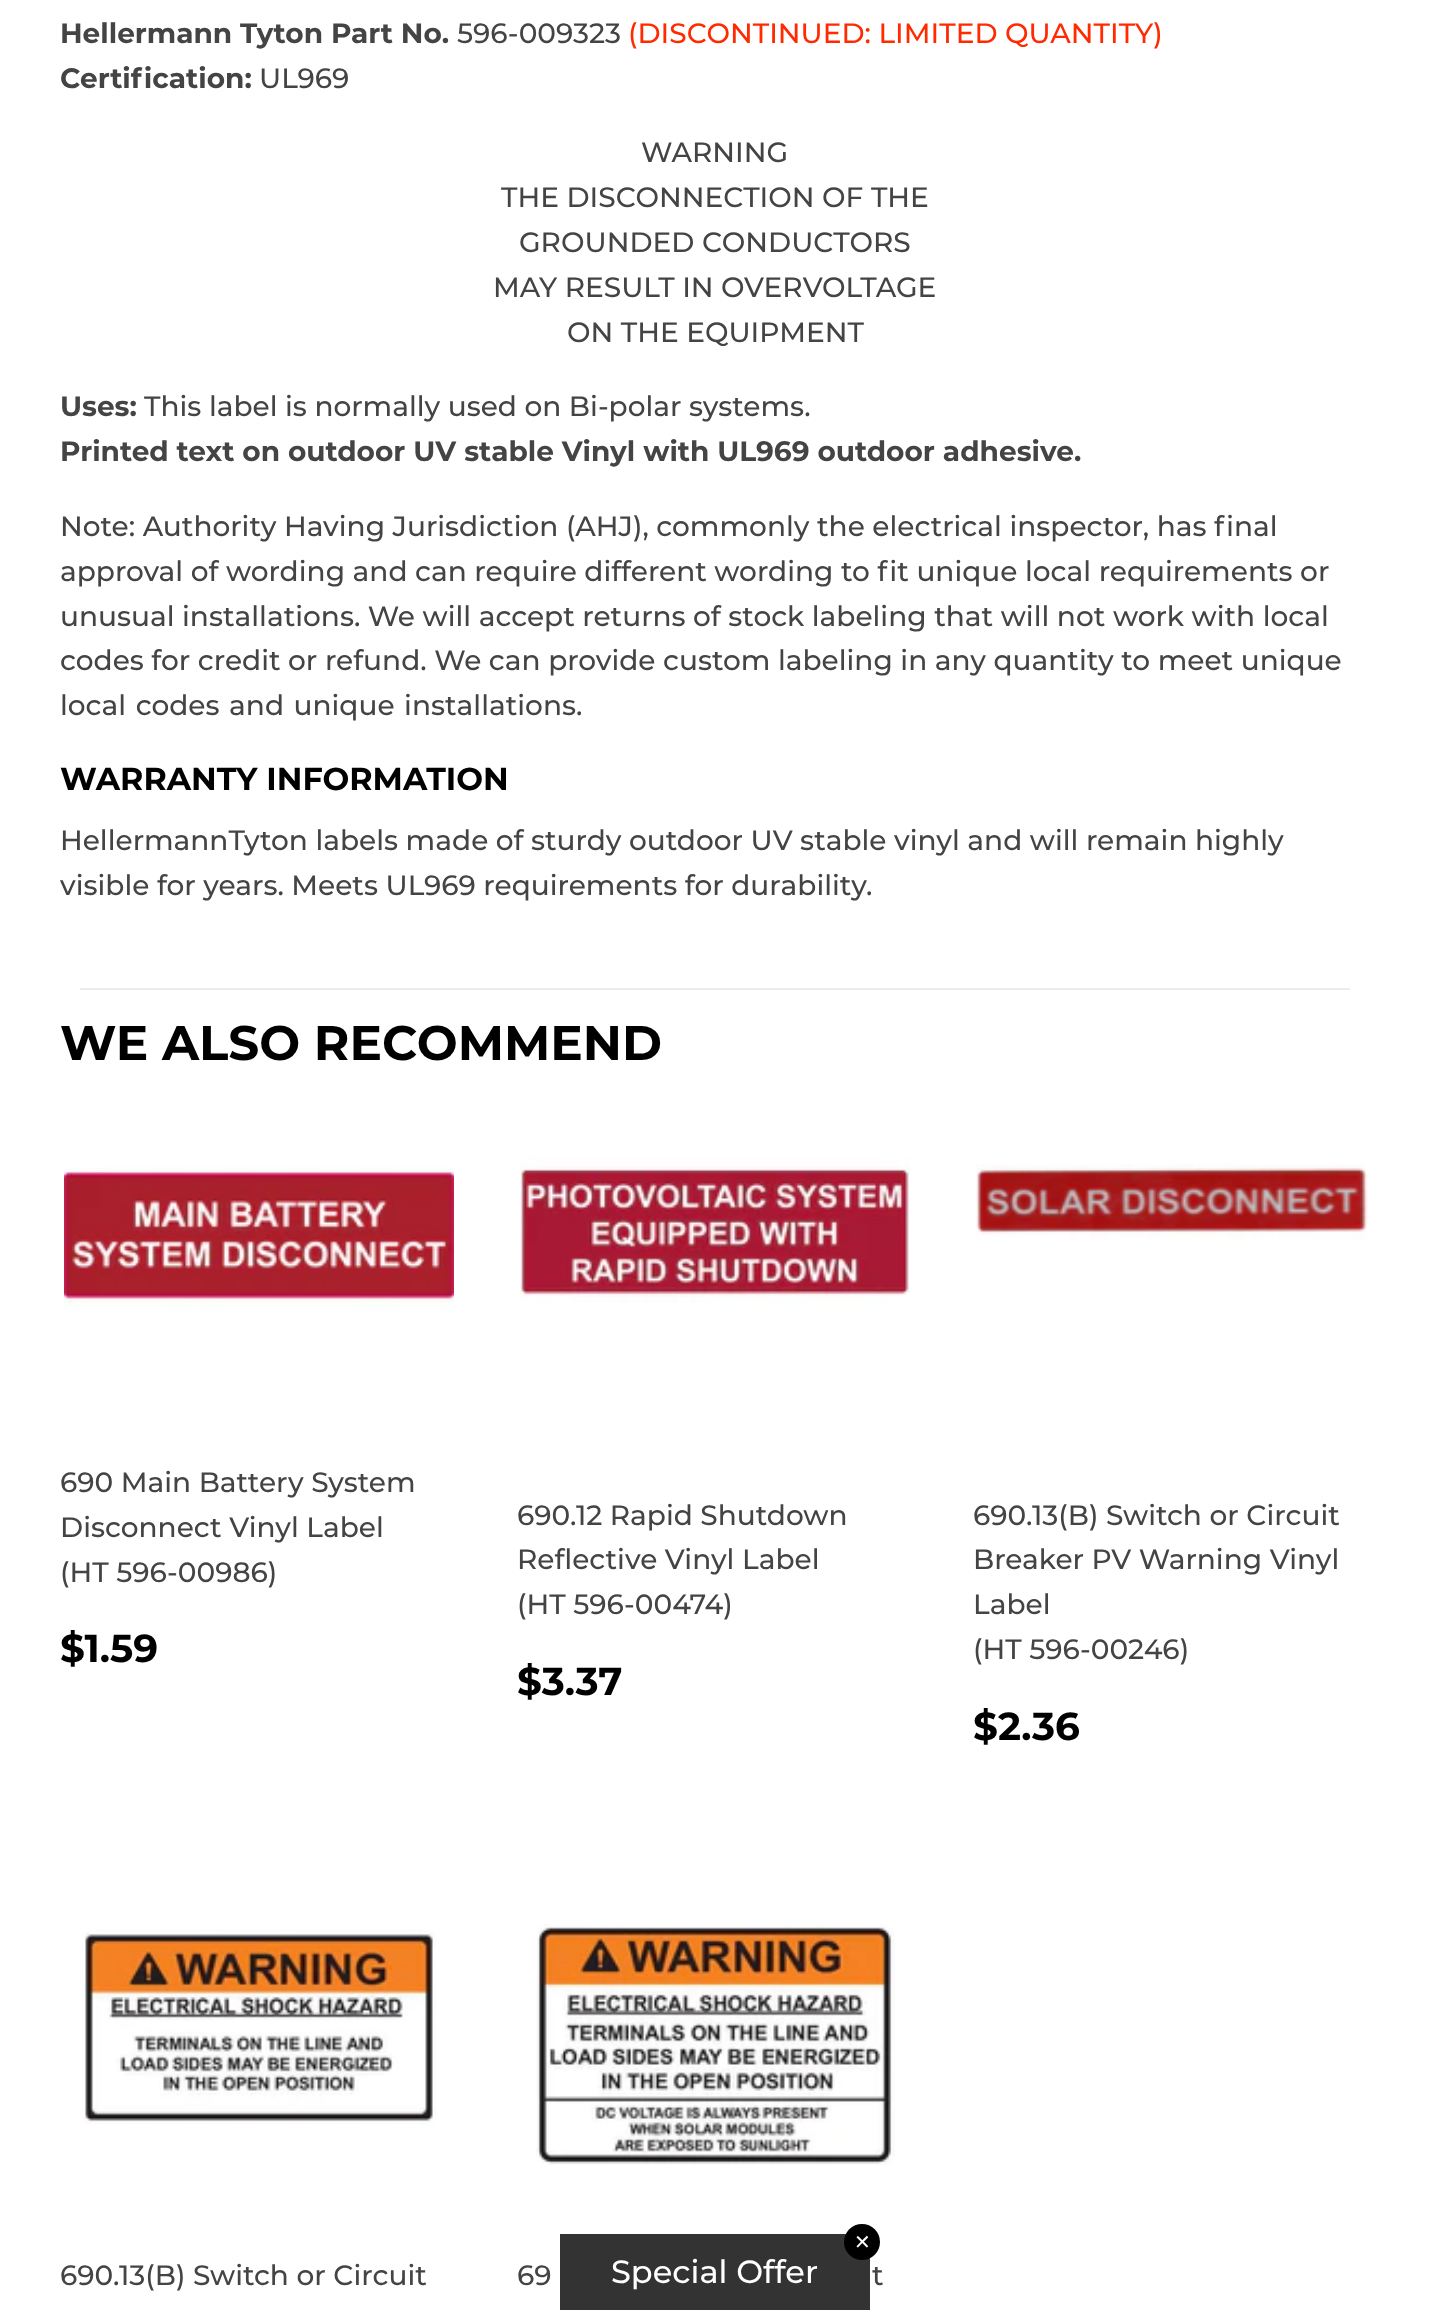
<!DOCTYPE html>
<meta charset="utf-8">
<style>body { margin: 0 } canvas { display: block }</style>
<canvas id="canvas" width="1429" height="2310"></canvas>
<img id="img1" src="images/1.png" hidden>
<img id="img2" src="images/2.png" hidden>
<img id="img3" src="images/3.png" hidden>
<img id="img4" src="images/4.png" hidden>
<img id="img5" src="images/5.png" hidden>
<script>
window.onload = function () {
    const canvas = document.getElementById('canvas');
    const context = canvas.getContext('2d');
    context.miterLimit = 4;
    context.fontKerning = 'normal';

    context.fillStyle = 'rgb(255, 255, 255)';
    context.fillRect(0, 0, 1429, 2310);
    context.fillStyle = 'rgb(236, 236, 236)';
    context.fillRect(80, 988, 1270, 2);
    context.drawImage(document.getElementById('img1'), 64, 1167, 390, 144);
    context.drawImage(document.getElementById('img2'), 520, 1156, 390, 147);
    context.drawImage(document.getElementById('img3'), 976, 1164, 392, 76);
    context.drawImage(document.getElementById('img4'), 82, 1929, 354, 196);
    context.drawImage(document.getElementById('img5'), 536, 1924, 359, 241);
    context.fillStyle = 'rgb(51, 51, 51)';
    context.fillRect(560, 2234, 310, 76);
    context.fillStyle = 'rgb(0, 0, 0)';
    context.beginPath();
    context.arc(862, 2242, 18, 0, 2 * Math.PI);
    context.fill();
    context.font = 'bold 28px Montserrat';
    context.fillStyle = 'rgb(68, 68, 68)';
    context.fillText('Hellermann Tyton Part No.', 60, 43);
    context.font = '500 28px Montserrat';
    context.fillText('596-009323', 457, 43);
    context.fillStyle = 'rgb(255, 42, 0)';
    context.fillText('(DISCONTINUED: LIMITED QUANTITY)', 628, 43);
    context.font = 'bold 28px Montserrat';
    context.fillStyle = 'rgb(68, 68, 68)';
    context.fillText('Certification:', 60, 88);
    context.font = '500 28px Montserrat';
    context.fillText('UL969', 259, 88);
    context.fillText('WARNING', 641, 162);
    context.fillText('THE DISCONNECTION OF THE', 501, 207);
    context.fillText('GROUNDED CONDUCTORS', 519, 252);
    context.fillText('MAY RESULT IN OVERVOLTAGE', 493, 297);
    context.fillText('ON THE EQUIPMENT', 567, 342);
    context.font = 'bold 28px Montserrat';
    context.fillText('Uses:', 60, 416);
    context.font = '500 28px Montserrat';
    context.fillText('This label is normally used on Bi-polar systems.', 144, 416);
    context.font = 'bold 28px Montserrat';
    context.fillText('Printed text on outdoor UV stable Vinyl with UL969 outdoor adhesive.', 60, 461);
    context.font = '500 28px Montserrat';
    context.fillText('Note: Authority Having Jurisdiction (AHJ), commonly the electrical inspector, has final', 60, 536);
    context.fillText('approval of wording and can require different wording to fit unique local requirements or', 60, 581);
    context.fillText('unusual installations. We will accept returns of stock labeling that will not work with local', 60, 626);
    context.fillText('codes for credit or refund. We can provide custom labeling in any quantity to meet unique', 60, 670);
    context.wordSpacing = '2px';
    context.fillText('local codes and unique installations.', 60, 715);
    context.wordSpacing = '0px';
    context.font = 'bold 31.75px Montserrat';
    context.fillStyle = 'rgb(0, 0, 0)';
    context.fillText('WARRANTY INFORMATION', 60, 790);
    context.font = '500 28px Montserrat';
    context.fillStyle = 'rgb(68, 68, 68)';
    context.fillText('HellermannTyton labels made of sturdy outdoor UV stable vinyl and will remain highly', 60, 850);
    context.fillText('visible for years. Meets UL969 requirements for durability.', 60, 895);
    context.font = 'bold 48.5px Montserrat';
    context.fillStyle = 'rgb(0, 0, 0)';
    context.fillText('WE ALSO RECOMMEND', 60, 1060);
    context.font = '500 28px Montserrat';
    context.fillStyle = 'rgb(68, 68, 68)';
    context.fillText('690 Main Battery System', 60, 1492);
    context.fillText('Disconnect Vinyl Label', 60, 1537);
    context.fillText('(HT 596-00986)', 60, 1582);
    context.font = 'bold 39px Montserrat';
    context.fillStyle = 'rgb(0, 0, 0)';
    context.fillText('$1.59', 60, 1662);
    context.font = '500 28px Montserrat';
    context.fillStyle = 'rgb(68, 68, 68)';
    context.fillText('690.12 Rapid Shutdown', 517, 1525);
    context.fillText('Reflective Vinyl Label', 517, 1569);
    context.fillText('(HT 596-00474)', 517, 1614);
    context.font = 'bold 39px Montserrat';
    context.fillStyle = 'rgb(0, 0, 0)';
    context.fillText('$3.37', 517, 1695);
    context.font = '500 28px Montserrat';
    context.fillStyle = 'rgb(68, 68, 68)';
    context.fillText('690.13(B) Switch or Circuit', 973, 1525);
    context.fillText('Breaker PV Warning Vinyl', 973, 1569);
    context.fillText('Label', 973, 1614);
    context.fillText('(HT 596-00246)', 973, 1659);
    context.font = 'bold 39px Montserrat';
    context.fillStyle = 'rgb(0, 0, 0)';
    context.fillText('$2.36', 973, 1740);
    context.font = '500 28px Montserrat';
    context.fillStyle = 'rgb(68, 68, 68)';
    context.fillText('690.13(B) Switch or Circuit', 60, 2285);
    context.fillText('69', 517, 2285);
    context.fillText('t', 872, 2285);
    context.font = '20px DejaVu Sans';
    context.fillStyle = 'rgb(255, 255, 255)';
    context.fillText('✕', 854, 2249);
    context.font = '500 32px Montserrat';
    context.fillText('Special Offer', 611, 2283);
};
</script>
